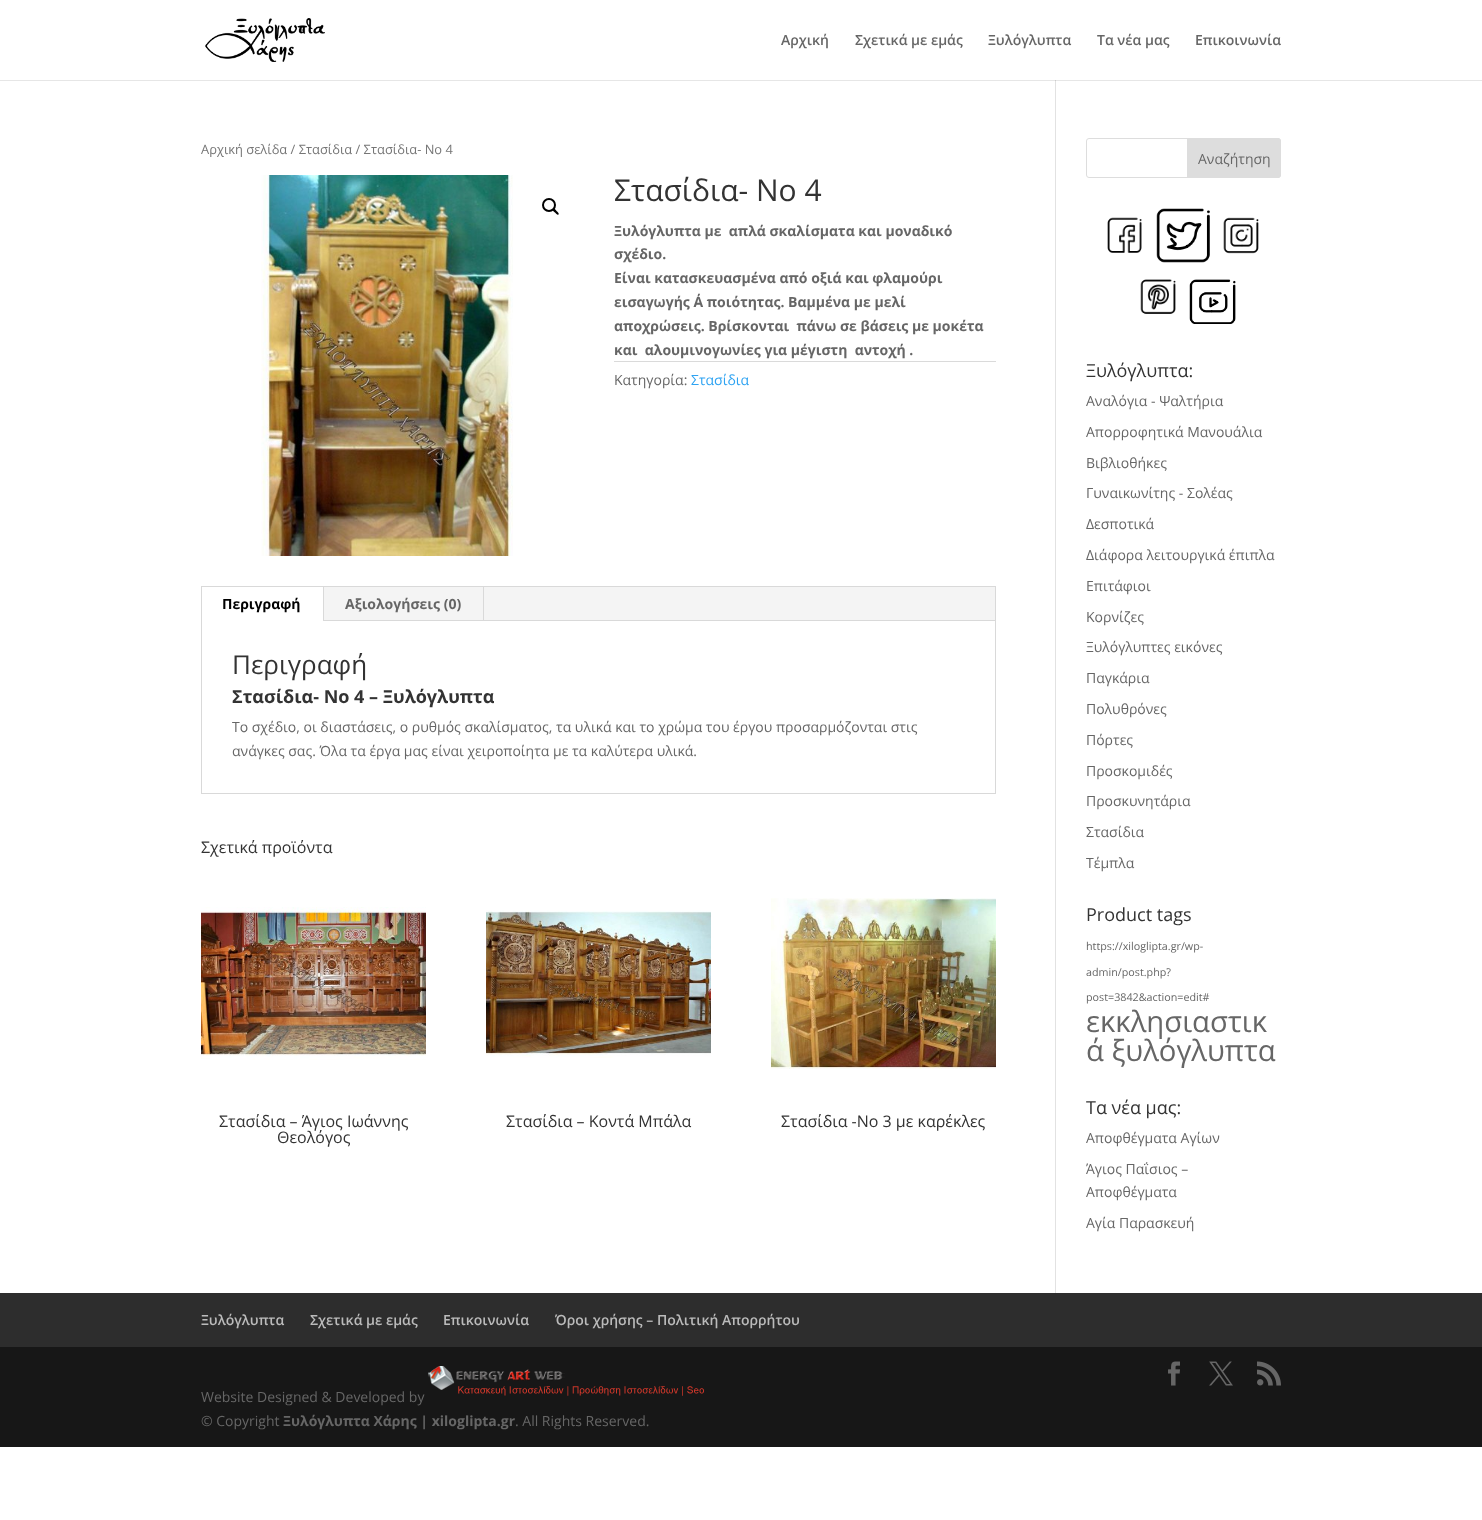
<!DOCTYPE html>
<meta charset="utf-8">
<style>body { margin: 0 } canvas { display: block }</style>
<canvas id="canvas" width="1482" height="1520"></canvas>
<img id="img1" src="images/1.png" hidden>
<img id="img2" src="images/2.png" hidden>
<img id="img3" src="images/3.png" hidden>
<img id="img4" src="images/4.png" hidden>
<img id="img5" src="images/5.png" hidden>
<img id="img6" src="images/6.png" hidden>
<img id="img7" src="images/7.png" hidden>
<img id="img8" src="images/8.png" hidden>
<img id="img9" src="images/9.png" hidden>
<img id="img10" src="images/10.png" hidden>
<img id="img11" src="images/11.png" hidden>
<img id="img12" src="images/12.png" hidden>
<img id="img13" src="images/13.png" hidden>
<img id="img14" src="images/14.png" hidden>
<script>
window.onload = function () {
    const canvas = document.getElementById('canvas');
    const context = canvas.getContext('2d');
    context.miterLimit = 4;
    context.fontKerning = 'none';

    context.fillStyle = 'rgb(255, 255, 255)';
    context.fillRect(0, 0, 1482, 1520);
    context.fillStyle = 'rgb(230, 230, 230)';
    context.fillRect(0, 80, 1482, 1);
    context.drawImage(document.getElementById('img1'), 205, 18, 120, 44);
    context.fillStyle = 'rgb(226, 226, 226)';
    context.fillRect(1055, 80, 1, 1213);
    context.fillStyle = 'rgb(203, 203, 203)';
    context.fillRect(1055, 80, 1, 1);
    context.drawImage(document.getElementById('img2'), 261, 175, 252, 381);
    context.beginPath();
    context.arc(549, 205, 6, 0, 2 * Math.PI);
    context.strokeStyle = 'rgb(0, 0, 0)';
    context.lineWidth = 2;
    context.stroke();
    context.fillStyle = 'rgb(0, 0, 0)';
    context.beginPath();
    context.moveTo(553, 209);
    context.bezierCurveTo(554, 207.5, 556, 210.5, 556.5, 211);
    context.bezierCurveTo(557, 211.5, 559.5, 213.5, 558.5, 214.5);
    context.bezierCurveTo(557.5, 215.5, 555.5, 213, 555, 212.5);
    context.bezierCurveTo(554.5, 212, 551.5, 210, 553, 209);
    context.closePath();
    context.fill();
    context.fillStyle = 'rgb(218, 218, 218)';
    context.fillRect(614, 361, 382, 1);
    context.strokeStyle = 'rgb(217, 217, 217)';
    context.lineWidth = 1;
    context.strokeRect(201.5, 586.5, 794, 207);
    context.fillStyle = 'rgb(244, 244, 244)';
    context.fillRect(324, 587, 671, 33);
    context.fillStyle = 'rgb(217, 217, 217)';
    context.fillRect(323, 587, 1, 34);
    context.fillRect(483, 587, 1, 34);
    context.fillRect(324, 620, 671, 1);
    context.drawImage(document.getElementById('img3'), 201, 907, 225, 153);
    context.drawImage(document.getElementById('img4'), 486, 910, 225, 148);
    context.drawImage(document.getElementById('img5'), 771, 898, 225, 171);
    context.beginPath();
    context.roundRect(1086.5, 138.5, 194, 39, 2.5);
    context.strokeStyle = 'rgb(221, 221, 221)';
    context.stroke();
    context.fillStyle = 'rgb(221, 221, 221)';
    context.beginPath();
    context.roundRect(1187.5, 138.5, 93, 39, [0, 2.5, 2.5, 0]);
    context.fill();
    context.stroke();
    context.drawImage(document.getElementById('img6'), 1107, 217, 35, 36);
    context.drawImage(document.getElementById('img7'), 1156, 208, 54, 55);
    context.drawImage(document.getElementById('img8'), 1223, 217, 36, 37);
    context.drawImage(document.getElementById('img9'), 1140, 279, 36, 35);
    context.drawImage(document.getElementById('img10'), 1189, 279, 47, 45);
    context.fillStyle = 'rgb(45, 45, 45)';
    context.fillRect(0, 1293, 1482, 54);
    context.fillStyle = 'rgb(23, 23, 23)';
    context.fillRect(0, 1347, 1482, 100);
    context.drawImage(document.getElementById('img11'), 1168, 1361, 12, 25);
    context.drawImage(document.getElementById('img12'), 1209, 1361, 24, 25);
    context.drawImage(document.getElementById('img13'), 1257, 1361, 24, 25);
    context.drawImage(document.getElementById('img14'), 428, 1366, 276, 30);
    context.font = '600 14px Open Sans';
    context.fillStyle = 'rgb(102, 102, 102)';
    context.fillText('Αρχική', 781, 45);
    context.fillText('Σχετικά με εμάς', 855, 45);
    context.fillText('Ξυλόγλυπτα', 988, 45);
    context.fillText('Τα νέα μας', 1097, 45);
    context.fillText('Επικοινωνία', 1195, 45);
    context.font = '12.9px Open Sans';
    context.fillStyle = 'rgb(118, 118, 118)';
    context.fillText('Αρχική σελίδα / Στασίδια / Στασίδια- Νο 4', 201, 154);
    context.font = '30px Open Sans';
    context.fillStyle = 'rgb(51, 51, 51)';
    context.fillText('Στασίδια- Νο 4', 614, 201);
    context.font = 'bold 14px Open Sans';
    context.fillStyle = 'rgb(102, 102, 102)';
    context.fillText('Ξυλόγλυπτα με  απλά σκαλίσματα και μοναδικό', 614, 236);
    context.fillText('σχέδιο.', 614, 259);
    context.fillText('Είναι κατασκευασμένα από οξιά και φλαμούρι', 614, 283);
    context.fillText('εισαγωγής Α΄ ποιότητας. Βαμμένα με μελί', 614, 307);
    context.fillText('αποχρώσεις. Βρίσκονται  πάνω σε βάσεις με μοκέτα', 614, 331);
    context.fillText('και  αλουμινογωνίες για μέγιστη  αντοχή .', 614, 355);
    context.font = '14px Open Sans';
    context.fillText('Κατηγορία:', 614, 385);
    context.fillStyle = 'rgb(46, 163, 242)';
    context.fillText('Στασίδια', 691, 385);
    context.font = 'bold 14px Open Sans';
    context.fillStyle = 'rgb(0, 0, 0)';
    context.fillText('Περιγραφή', 222, 609);
    context.fillStyle = 'rgb(102, 102, 102)';
    context.fillText('Αξιολογήσεις (0)', 345, 609);
    context.font = '26px Open Sans';
    context.fillStyle = 'rgb(51, 51, 51)';
    context.fillText('Περιγραφή', 232, 674);
    context.font = 'bold 18px Open Sans';
    context.fillText('Στασίδια- Νο 4 – Ξυλόγλυπτα', 232, 703);
    context.font = '14px Open Sans';
    context.fillStyle = 'rgb(102, 102, 102)';
    context.fillText('Το σχέδιο, οι διαστάσεις, ο ρυθμός σκαλίσματος, τα υλικά και το χρώμα του έργου προσαρμόζονται στις', 232, 732);
    context.fillText('ανάγκες σας. Όλα τα έργα μας είναι χειροποίητα με τα καλύτερα υλικά.', 232, 756);
    context.font = '16px Open Sans';
    context.fillStyle = 'rgb(51, 51, 51)';
    context.fillText('Σχετικά προϊόντα', 201, 853);
    context.fillText('Στασίδια – Άγιος Ιωάννης', 219, 1127);
    context.fillText('Θεολόγος', 277, 1143);
    context.fillText('Στασίδια – Κοντά Μπάλα', 506, 1127);
    context.fillText('Στασίδια -No 3 με καρέκλες', 781, 1127);
    context.font = '14px Open Sans';
    context.fillStyle = 'rgb(102, 102, 102)';
    context.fillText('Αναζήτηση', 1198, 164);
    context.font = '18px Open Sans';
    context.fillStyle = 'rgb(51, 51, 51)';
    context.fillText('Ξυλόγλυπτα:', 1086, 377);
    context.font = '14px Open Sans';
    context.fillStyle = 'rgb(102, 102, 102)';
    context.fillText('Αναλόγια - Ψαλτήρια', 1086, 406);
    context.fillText('Απορροφητικά Μανουάλια', 1086, 437);
    context.fillText('Βιβλιοθήκες', 1086, 468);
    context.fillText('Γυναικωνίτης - Σολέας', 1086, 498);
    context.fillText('Δεσποτικά', 1086, 529);
    context.fillText('Διάφορα λειτουργικά έπιπλα', 1086, 560);
    context.fillText('Επιτάφιοι', 1086, 591);
    context.fillText('Κορνίζες', 1086, 622);
    context.fillText('Ξυλόγλυπτες εικόνες', 1086, 652);
    context.fillText('Παγκάρια', 1086, 683);
    context.fillText('Πολυθρόνες', 1086, 714);
    context.fillText('Πόρτες', 1086, 745);
    context.fillText('Προσκομιδές', 1086, 776);
    context.fillText('Προσκυνητάρια', 1086, 806);
    context.fillText('Στασίδια', 1086, 837);
    context.fillText('Τέμπλα', 1086, 868);
    context.font = '18px Open Sans';
    context.fillStyle = 'rgb(51, 51, 51)';
    context.fillText('Product tags', 1086, 921);
    context.font = '10.75px Open Sans';
    context.fillStyle = 'rgb(102, 102, 102)';
    context.fillText('https://xiloglipta.gr/wp-', 1086, 950);
    context.fillText('admin/post.php?', 1086, 976);
    context.fillText('post=3842&action=edit#', 1086, 1001);
    context.font = '29.25px Open Sans';
    context.fillText('εκκλησιαστικ', 1086, 1032);
    context.fillText('ά ξυλόγλυπτα', 1086, 1061);
    context.font = '18px Open Sans';
    context.fillStyle = 'rgb(51, 51, 51)';
    context.fillText('Τα νέα μας:', 1086, 1114);
    context.font = '14px Open Sans';
    context.fillStyle = 'rgb(102, 102, 102)';
    context.fillText('Αποφθέγματα Αγίων', 1086, 1143);
    context.fillText('Άγιος Παΐσιος –', 1086, 1174);
    context.fillText('Αποφθέγματα', 1086, 1197);
    context.fillText('Αγία Παρασκευή', 1086, 1228);
    context.font = '600 14px Open Sans';
    context.fillStyle = 'rgb(187, 187, 187)';
    context.fillText('Ξυλόγλυπτα', 201, 1325);
    context.fillText('Σχετικά με εμάς', 310, 1325);
    context.fillText('Επικοινωνία', 443, 1325);
    context.fillText('Όροι χρήσης – Πολιτική Απορρήτου', 555, 1325);
    context.font = '14px Open Sans';
    context.fillStyle = 'rgb(102, 102, 102)';
    context.fillText('Website Designed & Developed by', 201, 1402);
    context.fillText('© Copyright', 201, 1426);
    context.font = 'bold 14px Open Sans';
    context.fillText('Ξυλόγλυπτα Χάρης | xiloglipta.gr', 283, 1426);
    context.font = '14px Open Sans';
    context.fillText('. All Rights Reserved.', 515, 1426);
};
</script>
